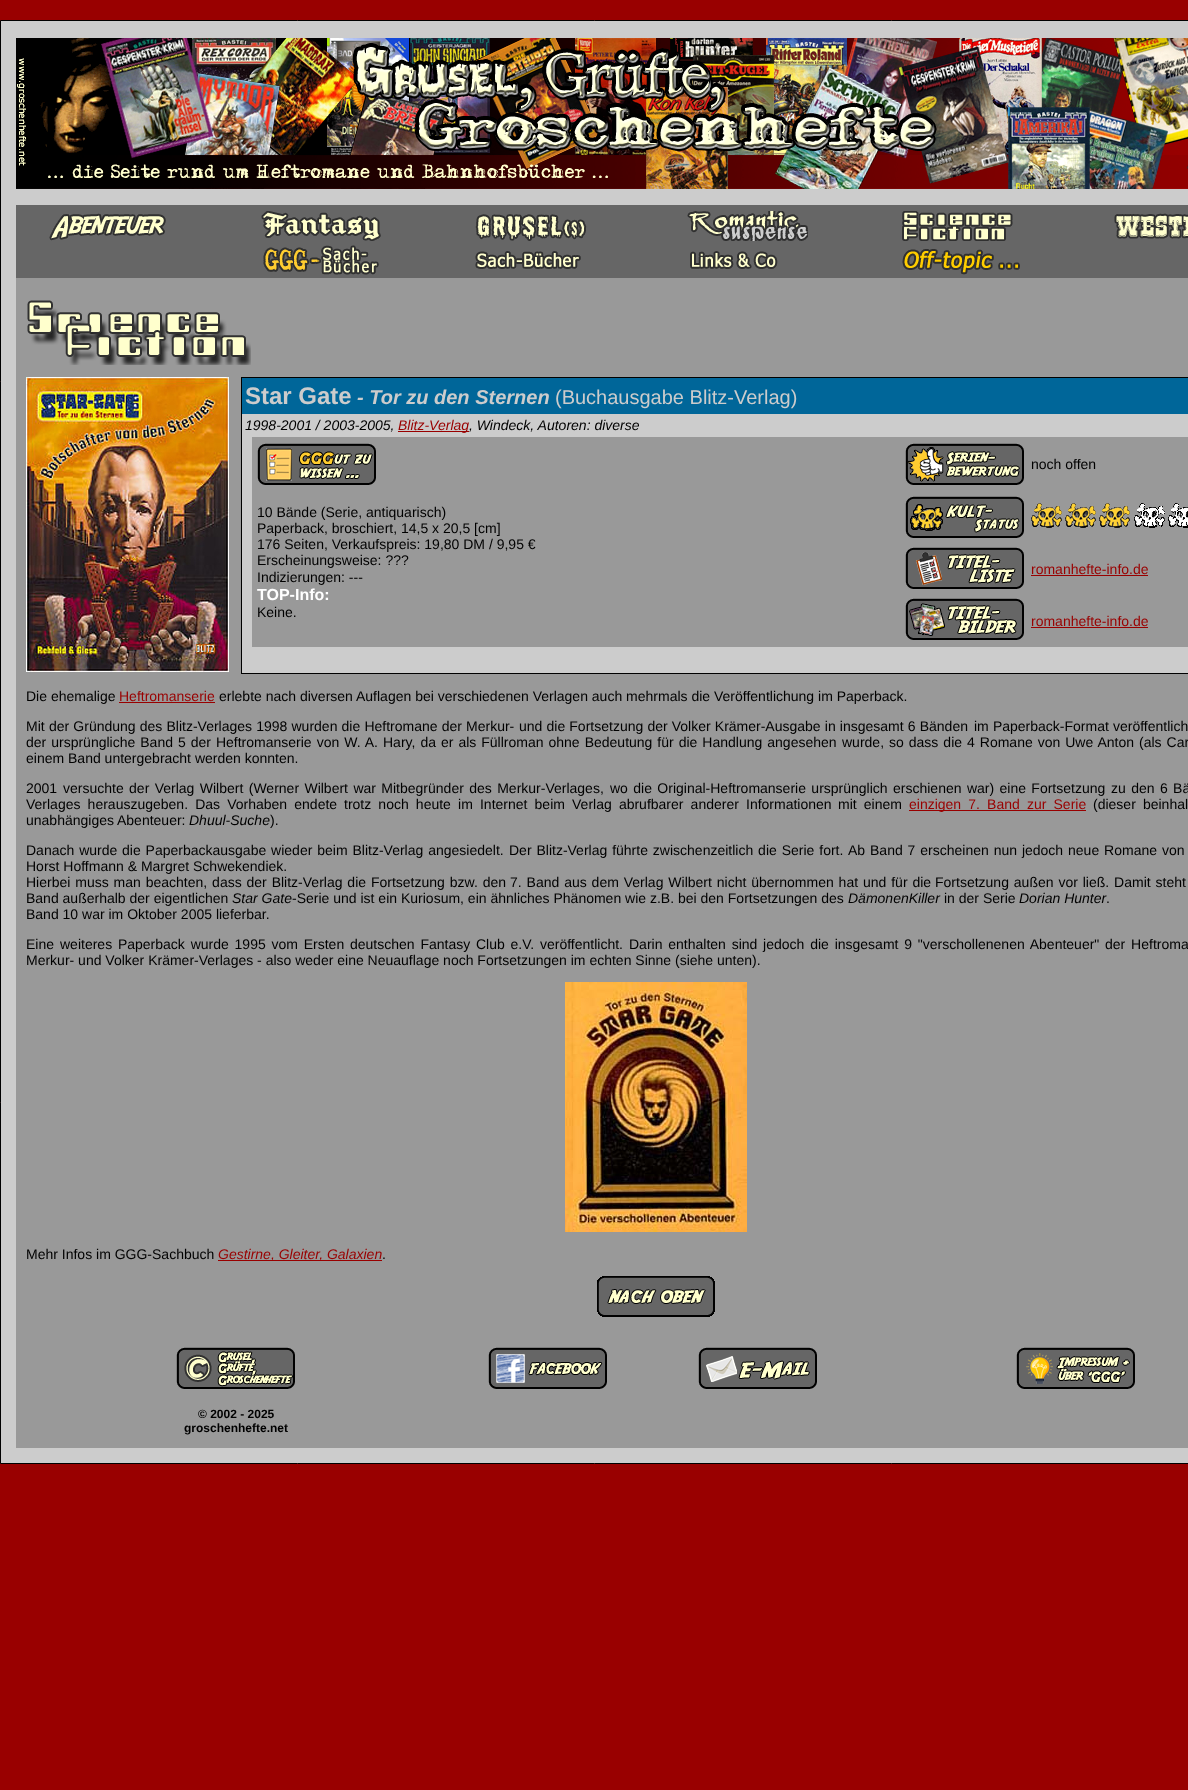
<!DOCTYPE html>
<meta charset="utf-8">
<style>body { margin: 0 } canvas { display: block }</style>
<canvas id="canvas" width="1188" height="1790"></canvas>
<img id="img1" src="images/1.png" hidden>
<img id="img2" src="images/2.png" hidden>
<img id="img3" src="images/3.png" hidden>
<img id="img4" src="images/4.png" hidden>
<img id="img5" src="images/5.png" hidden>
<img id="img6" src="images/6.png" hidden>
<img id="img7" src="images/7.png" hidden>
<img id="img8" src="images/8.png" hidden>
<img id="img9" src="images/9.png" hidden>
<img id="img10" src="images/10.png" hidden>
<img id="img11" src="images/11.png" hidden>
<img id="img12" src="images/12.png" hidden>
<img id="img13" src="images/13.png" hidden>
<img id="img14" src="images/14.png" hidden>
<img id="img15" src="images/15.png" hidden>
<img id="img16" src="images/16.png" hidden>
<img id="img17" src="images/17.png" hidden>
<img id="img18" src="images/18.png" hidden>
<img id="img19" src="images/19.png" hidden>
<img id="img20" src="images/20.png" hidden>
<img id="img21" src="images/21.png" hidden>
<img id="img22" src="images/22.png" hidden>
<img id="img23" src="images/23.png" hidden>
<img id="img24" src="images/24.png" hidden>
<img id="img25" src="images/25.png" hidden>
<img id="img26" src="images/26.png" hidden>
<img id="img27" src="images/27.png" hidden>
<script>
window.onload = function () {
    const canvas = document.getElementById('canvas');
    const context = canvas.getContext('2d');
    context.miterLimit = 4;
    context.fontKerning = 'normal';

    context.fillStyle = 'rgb(153, 0, 0)';
    context.fillRect(0, 0, 1188, 1790);
    context.fillStyle = 'rgb(204, 204, 204)';
    context.beginPath();
    context.rect(0.5, 20.5, 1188, 1443);
    context.fill();
    context.strokeStyle = 'rgb(0, 0, 0)';
    context.stroke();
    context.drawImage(document.getElementById('img1'), 16, 38, 1172, 151);
    context.fillStyle = 'rgb(102, 102, 102)';
    context.fillRect(16, 205, 1172, 73);
    context.drawImage(document.getElementById('img2'), 49, 213, 117, 28);
    context.drawImage(document.getElementById('img3'), 261, 211, 120, 30);
    context.drawImage(document.getElementById('img4'), 475, 214, 112, 27);
    context.drawImage(document.getElementById('img5'), 687, 211, 121, 30);
    context.drawImage(document.getElementById('img6'), 902, 211, 111, 30);
    context.drawImage(document.getElementById('img7'), 1114, 213, 74, 26);
    context.drawImage(document.getElementById('img8'), 263, 245, 116, 30);
    context.drawImage(document.getElementById('img9'), 475, 251, 106, 18);
    context.drawImage(document.getElementById('img10'), 690, 251, 88, 18);
    context.drawImage(document.getElementById('img11'), 902, 249, 118, 26);
    context.fillStyle = 'rgb(153, 153, 153)';
    context.fillRect(16, 278, 1172, 1170);
    context.drawImage(document.getElementById('img12'), 27, 300, 224, 65);
    context.drawImage(document.getElementById('img13'), 26, 377, 203, 295);
    context.fillStyle = 'rgb(204, 204, 204)';
    context.fillRect(242, 414, 946, 259);
    context.strokeRect(241.5, 377.5, 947, 296);
    context.fillStyle = 'rgb(0, 102, 153)';
    context.fillRect(242, 378, 946, 36);
    context.fillStyle = 'rgb(153, 0, 0)';
    context.fillRect(398, 431, 71, 1);
    context.fillStyle = 'rgb(153, 153, 153)';
    context.fillRect(252, 437, 936, 53);
    context.drawImage(document.getElementById('img14'), 257, 443, 119, 42);
    context.drawImage(document.getElementById('img15'), 905, 443, 119, 42);
    context.fillRect(872, 490, 316, 53);
    context.drawImage(document.getElementById('img16'), 905, 496, 119, 42);
    context.fillRect(252, 490, 620, 157);
    context.drawImage(document.getElementById('img17'), 1031, 503, 31, 25);
    context.drawImage(document.getElementById('img17'), 1065, 503, 31, 25);
    context.drawImage(document.getElementById('img17'), 1099, 503, 31, 25);
    context.drawImage(document.getElementById('img18'), 1134, 503, 31, 25);
    context.drawImage(document.getElementById('img19'), 1168, 503, 20, 25);
    context.fillRect(872, 543, 316, 51);
    context.drawImage(document.getElementById('img20'), 905, 547, 119, 42);
    context.fillStyle = 'rgb(153, 0, 0)';
    context.fillRect(1031, 575, 117, 1);
    context.fillStyle = 'rgb(153, 153, 153)';
    context.fillRect(872, 594, 316, 53);
    context.drawImage(document.getElementById('img21'), 905, 598, 119, 42);
    context.fillStyle = 'rgb(153, 0, 0)';
    context.fillRect(1031, 627, 117, 1);
    context.fillRect(119, 702, 96, 1);
    context.fillRect(909, 810, 177, 1);
    context.drawImage(document.getElementById('img22'), 565, 982, 182, 250);
    context.fillRect(218, 1260, 164, 1);
    context.drawImage(document.getElementById('img23'), 597, 1276, 118, 41);
    context.drawImage(document.getElementById('img24'), 176, 1347, 119, 42);
    context.drawImage(document.getElementById('img25'), 488, 1347, 119, 42);
    context.drawImage(document.getElementById('img26'), 698, 1347, 119, 42);
    context.drawImage(document.getElementById('img27'), 1016, 1347, 119, 42);
    context.font = 'bold 24px Liberation Sans';
    context.fillStyle = 'rgb(204, 204, 204)';
    context.fillText('Star Gate', 245, 404);
    context.font = 'italic bold 20px Liberation Sans';
    context.fillText('- Tor zu den Sternen', 357, 404);
    context.font = '20px Liberation Sans';
    context.fillText('(Buchausgabe Blitz-Verlag)', 555, 404);
    context.font = 'italic 14px Liberation Sans';
    context.fillStyle = 'rgb(0, 0, 0)';
    context.fillText('1998-2001 / 2003-2005,', 245, 430);
    context.fillStyle = 'rgb(153, 0, 0)';
    context.fillText('Blitz-Verlag', 398, 430);
    context.fillStyle = 'rgb(0, 0, 0)';
    context.fillText(', Windeck, Autoren: diverse', 469, 430);
    context.font = '14px Liberation Sans';
    context.fillText('noch offen', 1031, 469);
    context.fillText('10 Bände (Serie, antiquarisch)', 257, 517);
    context.fillText('Paperback, broschiert, 14,5 x 20,5 [cm]', 257, 533);
    context.fillText('176 Seiten, Verkaufspreis: 19,80 DM / 9,95 €', 257, 549);
    context.fillText('Erscheinungsweise: ???', 257, 565);
    context.fillText('Indizierungen: ---', 257, 582);
    context.font = 'bold 16px Liberation Sans';
    context.fillStyle = 'rgb(255, 255, 255)';
    context.fillText('TOP-Info:', 257, 600);
    context.font = '14px Liberation Sans';
    context.fillStyle = 'rgb(0, 0, 0)';
    context.fillText('Keine.', 257, 617);
    context.fillStyle = 'rgb(153, 0, 0)';
    context.fillText('romanhefte-info.de', 1031, 574);
    context.fillText('romanhefte-info.de', 1031, 626);
    context.fillStyle = 'rgb(0, 0, 0)';
    context.fillText('Die ehemalige', 26, 701);
    context.fillStyle = 'rgb(153, 0, 0)';
    context.fillText('Heftromanserie', 119, 701);
    context.fillStyle = 'rgb(0, 0, 0)';
    context.fillText('erlebte nach diversen Auflagen bei verschiedenen Verlagen auch mehrmals die Veröffentlichung im Paperback.', 219, 701);
    context.fillText('Mit', 26, 731);
    context.wordSpacing = '0.25px';
    context.fillText('der Gründung des Blitz-Verlages 1998 wurden die Heftromane der Merkur-', 49, 731);
    context.fillText('und die Fortsetzung der Volker Krämer-Ausgabe in insgesamt 6 Bänden', 519, 731);
    context.fillText('im Paperback-Format veröffentlich', 974, 731);
    context.wordSpacing = '1.1px';
    context.fillText('der ursprüngliche Band 5 der Heftromanserie von W. A.', 26, 747);
    context.fillText('Hary, da er als Füllroman ohne Bedeutung für die Handlung angesehen', 383, 747);
    context.fillText('wurde, so dass die 4 Romane von Uwe Anton (als Car', 842, 747);
    context.wordSpacing = '0px';
    context.fillText('einem Band untergebracht werden konnten.', 26, 763);
    context.fillText('2001', 26, 793);
    context.wordSpacing = '1.5px';
    context.fillText('versuchte der Verlag Wilbert (Werner Wilbert war Mitbegründer des Merkur-Verlages,', 63, 793);
    context.fillText('wo die Original-Heftromanserie ursprünglich erschienen war) eine Fortsetzung', 610, 793);
    context.fillText('zu den 6 Bä', 1111, 793);
    context.wordSpacing = '3.25px';
    context.fillText('Verlages herauszugeben. Das Vorhaben endete', 26, 809);
    context.fillText('trotz noch heute im Internet beim Verlag abrufbarer anderer Informationen', 344, 809);
    context.fillText('mit einem', 838, 809);
    context.fillStyle = 'rgb(153, 0, 0)';
    context.fillText('einzigen 7. Band zur Serie', 909, 809);
    context.fillStyle = 'rgb(0, 0, 0)';
    context.fillText('(dieser beinhal', 1093, 809);
    context.wordSpacing = '0px';
    context.fillText('unabhängiges', 26, 825);
    context.fillText('Abenteuer:', 117, 825);
    context.font = 'italic 14px Liberation Sans';
    context.fillText('Dhuul-Suche', 189, 825);
    context.font = '14px Liberation Sans';
    context.fillText(').', 270, 825);
    context.wordSpacing = '1px';
    context.fillText('Danach wurde', 26, 855);
    context.fillText('die Paperbackausgabe wieder beim Blitz-Verlag angesiedelt.', 122, 855);
    context.fillText('Der Blitz-Verlag führte zwischenzeitlich die Serie fort.', 509, 855);
    context.fillText('Ab Band 7 erscheinen nun jedoch neue Romane von', 848, 855);
    context.wordSpacing = '0px';
    context.fillText('Horst Hoffmann & Margret Schwekendiek.', 26, 871);
    context.wordSpacing = '1px';
    context.fillText('Hierbei muss man beachten, dass der Blitz-Verlag die Fortsetzung bzw. den', 26, 887);
    context.fillText('7. Band aus dem Verlag Wilbert nicht übernommen hat und für die', 510, 887);
    context.fillText('Fortsetzung außen vor ließ. Damit steht', 935, 887);
    context.wordSpacing = '0px';
    context.fillText('Band außerhalb der eigentlichen', 26, 903);
    context.font = 'italic 14px Liberation Sans';
    context.fillText('Star Gate', 232, 903);
    context.font = '14px Liberation Sans';
    context.fillText('-Serie und ist ein Kuriosum, ein ähnliches Phänomen wie z.B. bei den Fortsetzungen des', 292, 903);
    context.font = 'italic 14px Liberation Sans';
    context.fillText('DämonenKiller', 848, 903);
    context.font = '14px Liberation Sans';
    context.fillText('in der Serie', 944, 903);
    context.font = 'italic 14px Liberation Sans';
    context.fillText('Dorian Hunter', 1019, 903);
    context.font = '14px Liberation Sans';
    context.fillText('.', 1106, 903);
    context.fillText('Band 10 war im Oktober 2005 lieferbar.', 26, 919);
    context.fillText('Eine', 26, 949);
    context.wordSpacing = '1.9px';
    context.fillText('weiteres Paperback wurde 1995 vom Ersten deutschen Fantasy Club e.V. veröffentlicht.', 60, 949);
    context.fillText('Darin enthalten sind jedoch die insgesamt 9 "verschollenenen Abenteuer"', 629, 949);
    context.wordSpacing = '2px';
    context.fillText('der Heftroma', 1105, 949);
    context.wordSpacing = '0px';
    context.fillText('Merkur- und Volker Krämer-Verlages - also weder eine Neuauflage noch Fortsetzungen im echten Sinne (siehe unten).', 26, 965);
    context.fillText('Mehr Infos im GGG-Sachbuch', 26, 1259);
    context.font = 'italic 14px Liberation Sans';
    context.fillStyle = 'rgb(153, 0, 0)';
    context.fillText('Gestirne, Gleiter, Galaxien', 218, 1259);
    context.font = '14px Liberation Sans';
    context.fillStyle = 'rgb(0, 0, 0)';
    context.fillText('.', 382, 1259);
    context.font = 'bold 12px Liberation Sans';
    context.fillText('© 2002 - 2025', 198, 1418);
    context.fillText('groschenhefte.net', 184, 1432);
};
</script>
